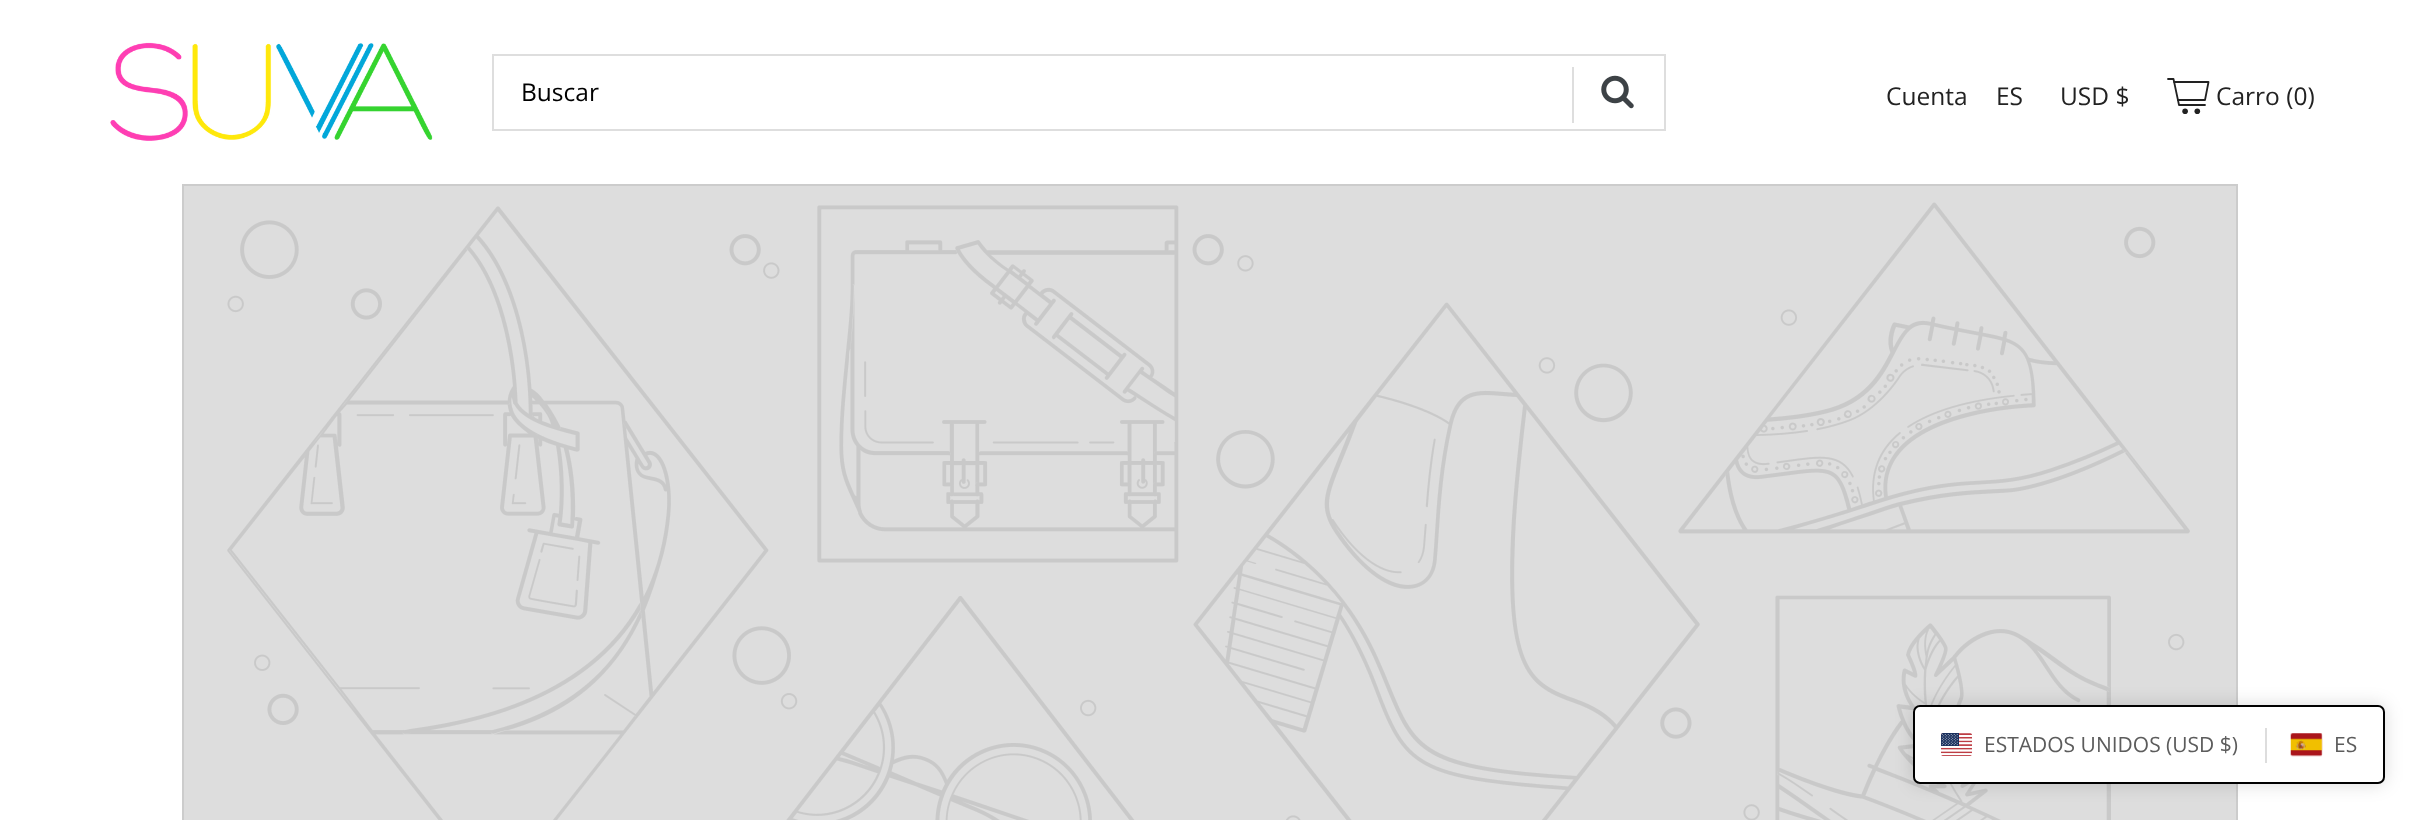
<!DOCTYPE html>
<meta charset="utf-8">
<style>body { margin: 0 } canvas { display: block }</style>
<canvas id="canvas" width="2420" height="820"></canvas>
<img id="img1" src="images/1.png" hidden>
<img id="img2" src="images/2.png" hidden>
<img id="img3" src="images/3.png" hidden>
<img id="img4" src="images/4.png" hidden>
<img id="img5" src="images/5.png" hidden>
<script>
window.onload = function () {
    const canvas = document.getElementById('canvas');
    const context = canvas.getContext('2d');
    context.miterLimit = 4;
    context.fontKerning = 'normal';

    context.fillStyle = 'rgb(255, 255, 255)';
    context.fillRect(0, 0, 2420, 820);
    context.drawImage(document.getElementById('img1'), 110, 42, 323, 99);
    context.strokeStyle = 'rgb(222, 222, 222)';
    context.lineWidth = 2;
    context.strokeRect(493, 55, 1172, 75);
    context.fillStyle = 'rgb(222, 222, 222)';
    context.fillRect(1572, 67, 2, 56);
    context.drawImage(document.getElementById('img2'), 1601, 75, 33, 34);
    context.beginPath();
    context.moveTo(2168, 79);
    context.lineTo(2173.5, 79);
    context.lineTo(2179, 105);
    context.lineTo(2205, 105);
    context.strokeStyle = 'rgb(34, 34, 34)';
    context.lineWidth = 1.8;
    context.lineCap = 'round';
    context.lineJoin = 'round';
    context.stroke();
    context.beginPath();
    context.moveTo(2173.5, 82);
    context.lineTo(2208.5, 82);
    context.lineTo(2205, 100);
    context.lineTo(2177, 100);
    context.lineCap = 'butt';
    context.stroke();
    context.fillStyle = 'rgb(34, 34, 34)';
    context.beginPath();
    context.arc(2185.1, 111.3, 2.8, 0, 2 * Math.PI);
    context.fill();
    context.beginPath();
    context.arc(2197.3, 111.3, 2.8, 0, 2 * Math.PI);
    context.fill();
    context.fillStyle = 'rgb(221, 221, 221)';
    context.beginPath();
    context.rect(183, 185, 2054, 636);
    context.fill();
    context.strokeStyle = 'rgb(204, 204, 204)';
    context.lineWidth = 2;
    context.lineJoin = 'miter';
    context.stroke();
    context.drawImage(document.getElementById('img3'), 227, 202, 1963, 618);
    context.fillStyle = 'rgba(0, 0, 0, 0.15)';
    context.filter = 'blur(9px)';
    context.beginPath();
    context.roundRect(1913, 705, 472, 79, 7);
    context.fill();
    context.filter = 'none';
    context.fillStyle = 'rgb(255, 255, 255)';
    context.beginPath();
    context.roundRect(1914, 706, 470, 77, 6);
    context.fill();
    context.strokeStyle = 'rgb(0, 0, 0)';
    context.stroke();
    context.drawImage(document.getElementById('img4'), 1941, 733, 31, 23);
    context.fillStyle = 'rgb(221, 221, 221)';
    context.fillRect(2265, 728, 2, 35);
    context.drawImage(document.getElementById('img5'), 2290, 733, 33, 24);
    context.font = '24.5px Open Sans';
    context.fillStyle = 'rgb(0, 0, 0)';
    context.fillText('Buscar', 521, 101);
    context.fillStyle = 'rgb(34, 34, 34)';
    context.fillText('Cuenta', 1886, 105);
    context.fillText('ES', 1996, 105);
    context.fillText('USD $', 2060, 105);
    context.fillText('Carro (0)', 2216, 105);
    context.font = '21px Open Sans';
    context.fillStyle = 'rgb(92, 92, 92)';
    context.fillText('ESTADOS UNIDOS (USD $)', 1984, 752);
    context.fillText('ES', 2334, 752);
};
</script>
